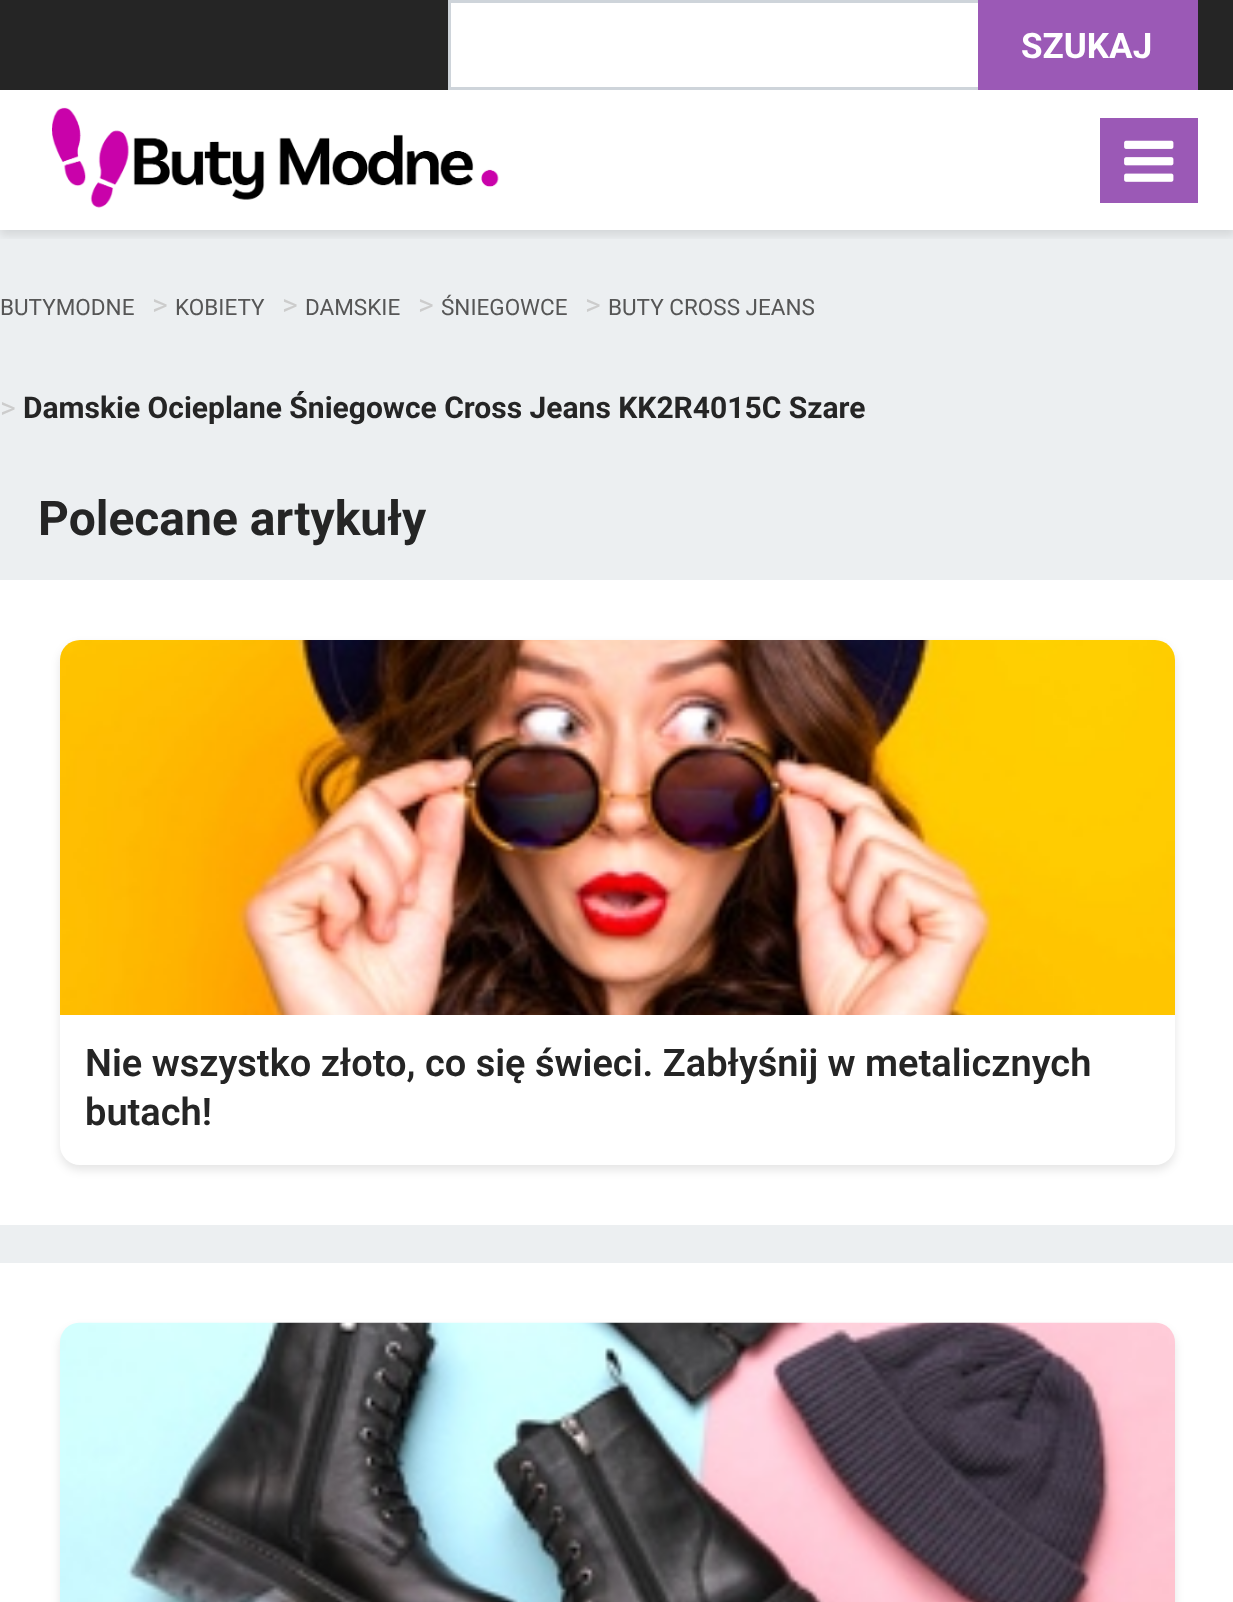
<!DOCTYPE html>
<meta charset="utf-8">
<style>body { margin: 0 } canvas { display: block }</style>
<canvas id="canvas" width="1233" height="1602"></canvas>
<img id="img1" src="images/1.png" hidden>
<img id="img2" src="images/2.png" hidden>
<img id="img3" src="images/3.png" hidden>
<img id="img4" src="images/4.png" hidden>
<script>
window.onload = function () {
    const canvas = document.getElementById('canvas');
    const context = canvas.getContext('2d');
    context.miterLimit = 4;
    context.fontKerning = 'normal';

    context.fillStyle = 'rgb(255, 255, 255)';
    context.fillRect(0, 0, 1233, 1602);
    context.fillStyle = 'rgb(37, 37, 37)';
    context.fillRect(0, 0, 1233, 90);
    context.fillStyle = 'rgb(255, 255, 255)';
    context.fillRect(451, 3, 527, 84);
    context.strokeStyle = 'rgb(206, 212, 218)';
    context.lineWidth = 3;
    context.strokeRect(449.5, 1.5, 747, 87);
    context.fillStyle = 'rgb(236, 239, 241)';
    context.fillRect(0, 230, 1233, 1033);
    context.save();
    context.beginPath();
    context.rect(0, 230, 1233, 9);
    context.clip();
    context.fillStyle = 'rgba(0, 0, 0, 0.1)';
    context.filter = 'blur(5px)';
    context.beginPath();
    context.rect(0, 95, 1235, 140);
    context.fill();
    context.filter = 'none';
    context.restore();
    context.fillStyle = 'rgb(155, 89, 182)';
    context.fillRect(978, 0, 220, 90);
    context.drawImage(document.getElementById('img1'), 52, 107, 447, 101);
    context.fillRect(1100, 118, 98, 85);
    context.drawImage(document.getElementById('img2'), 1124, 140, 50, 42);
    context.fillStyle = 'rgb(255, 255, 255)';
    context.fillRect(0, 580, 1233, 645);
    context.fillStyle = 'rgba(0, 0, 0, 0.1)';
    context.filter = 'blur(5px)';
    context.beginPath();
    context.roundRect(60, 645, 1115, 525, 20);
    context.fill();
    context.filter = 'none';
    context.fillStyle = 'rgb(255, 255, 255)';
    context.beginPath();
    context.roundRect(60, 640, 1115, 525, 20);
    context.fill();
    context.drawImage(document.getElementById('img3'), 60, 640, 1115, 375);
    context.fillStyle = 'rgba(0, 0, 0, 0.1)';
    context.filter = 'blur(5px)';
    context.beginPath();
    context.roundRect(60, 1328, 1115, 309, 20);
    context.fill();
    context.filter = 'none';
    context.drawImage(document.getElementById('img4'), 60, 1322, 1115, 280);
    context.font = 'bold 35px Roboto';
    context.fillStyle = 'rgb(255, 255, 255)';
    context.fillText('SZUKAJ', 1021, 58);
    context.font = '22.5px Roboto';
    context.fillStyle = 'rgb(86, 86, 86)';
    context.fillText('BUTYMODNE', 0, 315);
    context.font = '30px Roboto';
    context.fillStyle = 'rgb(204, 204, 204)';
    context.fillText('>', 152, 315);
    context.font = '22.5px Roboto';
    context.fillStyle = 'rgb(86, 86, 86)';
    context.fillText('KOBIETY', 175, 315);
    context.font = '30px Roboto';
    context.fillStyle = 'rgb(204, 204, 204)';
    context.fillText('>', 282, 315);
    context.font = '22.5px Roboto';
    context.fillStyle = 'rgb(86, 86, 86)';
    context.fillText('DAMSKIE', 305, 315);
    context.font = '30px Roboto';
    context.fillStyle = 'rgb(204, 204, 204)';
    context.fillText('>', 418, 315);
    context.font = '22.5px Roboto';
    context.fillStyle = 'rgb(86, 86, 86)';
    context.fillText('ŚNIEGOWCE', 441, 315);
    context.font = '30px Roboto';
    context.fillStyle = 'rgb(204, 204, 204)';
    context.fillText('>', 585, 315);
    context.font = '22.5px Roboto';
    context.fillStyle = 'rgb(86, 86, 86)';
    context.fillText('BUTY CROSS JEANS', 608, 315);
    context.font = '30px Roboto';
    context.fillStyle = 'rgb(204, 204, 204)';
    context.fillText('>', 0, 418);
    context.font = 'bold 30px Roboto';
    context.fillStyle = 'rgb(37, 37, 37)';
    context.fillText('Damskie Ocieplane Śniegowce Cross Jeans KK2R4015C Szare', 23, 418);
    context.font = 'bold 48px Roboto';
    context.fillText('Polecane artykuły', 38, 535);
    context.font = '600 38px Roboto';
    context.fillText('Nie wszystko złoto, co się świeci. Zabłyśnij w metalicznych', 85, 1076);
    context.fillText('butach!', 85, 1125);
};
</script>
